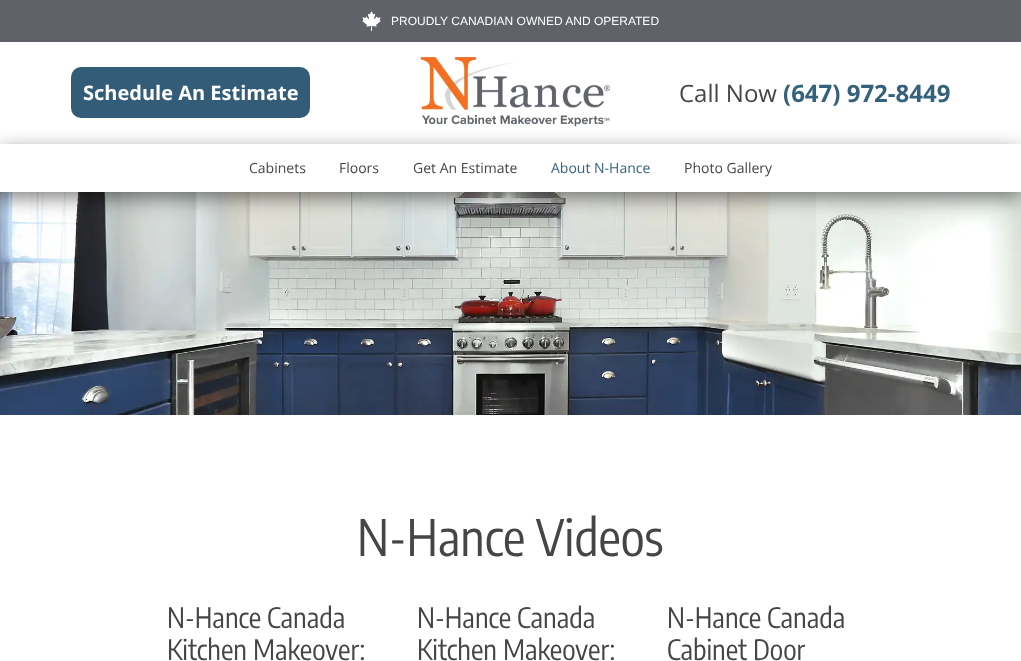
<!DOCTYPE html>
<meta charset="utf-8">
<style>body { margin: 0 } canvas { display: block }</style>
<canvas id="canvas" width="1021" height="661"></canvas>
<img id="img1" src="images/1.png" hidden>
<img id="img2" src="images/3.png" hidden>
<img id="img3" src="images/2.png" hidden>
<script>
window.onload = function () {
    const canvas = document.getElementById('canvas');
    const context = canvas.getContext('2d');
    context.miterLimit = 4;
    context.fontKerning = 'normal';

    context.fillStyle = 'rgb(255, 255, 255)';
    context.fillRect(0, 0, 1021, 661);
    context.fillStyle = 'rgb(96, 98, 105)';
    context.fillRect(0, 0, 1021, 42);
    context.drawImage(document.getElementById('img1'), 362, 11, 19, 20);
    context.fillStyle = 'rgb(50, 92, 119)';
    context.beginPath();
    context.roundRect(71, 67, 239, 51, 10);
    context.fill();
    context.drawImage(document.getElementById('img2'), 0, 192, 1021, 223);
    context.save();
    context.beginPath();
    context.moveTo(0, 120);
    context.lineTo(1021, 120);
    context.lineTo(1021, 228);
    context.lineTo(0, 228);
    context.closePath();
    context.moveTo(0, 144);
    context.lineTo(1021, 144);
    context.lineTo(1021, 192);
    context.lineTo(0, 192);
    context.closePath();
    context.clip('evenodd');
    context.fillStyle = 'rgba(0, 0, 0, 0.49)';
    context.filter = 'blur(9.5px)';
    context.beginPath();
    context.rect(-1, 150, 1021, 48);
    context.fill();
    context.filter = 'none';
    context.restore();
    context.drawImage(document.getElementById('img3'), 420, 57, 190, 70);
    context.font = '12px Liberation Sans';
    context.fillStyle = 'rgb(255, 255, 255)';
    context.fillText('PROUDLY CANADIAN OWNED AND OPERATED', 391, 25);
    context.font = 'bold 20px Open Sans';
    context.fillText('Schedule An Estimate', 83, 100);
    context.font = '24px Open Sans';
    context.fillStyle = 'rgb(67, 69, 71)';
    context.fillText('Call Now', 679, 102);
    context.font = 'bold 24px Open Sans';
    context.fillStyle = 'rgb(52, 98, 124)';
    context.fillText('(647) 972-8449', 783, 102);
    context.font = '14px Open Sans';
    context.fillStyle = 'rgb(67, 69, 71)';
    context.fillText('Cabinets', 249, 173);
    context.fillText('Floors', 339, 173);
    context.fillText('Get An Estimate', 413, 173);
    context.fillStyle = 'rgb(52, 98, 124)';
    context.fillText('About N-Hance', 551, 173);
    context.fillStyle = 'rgb(67, 69, 71)';
    context.fillText('Photo Gallery', 684, 173);
    context.font = '50px Encode Sans Condensed';
    context.fillText('N-Hance Videos', 357, 556);
    context.font = '28px Encode Sans Condensed';
    context.fillText('N-Hance Canada', 167, 628);
    context.fillText('Kitchen Makeover:', 167, 660);
    context.fillText('N-Hance Canada', 417, 628);
    context.fillText('Kitchen Makeover:', 417, 660);
    context.fillText('N-Hance Canada', 667, 628);
    context.fillText('Cabinet Door', 667, 660);
};
</script>
